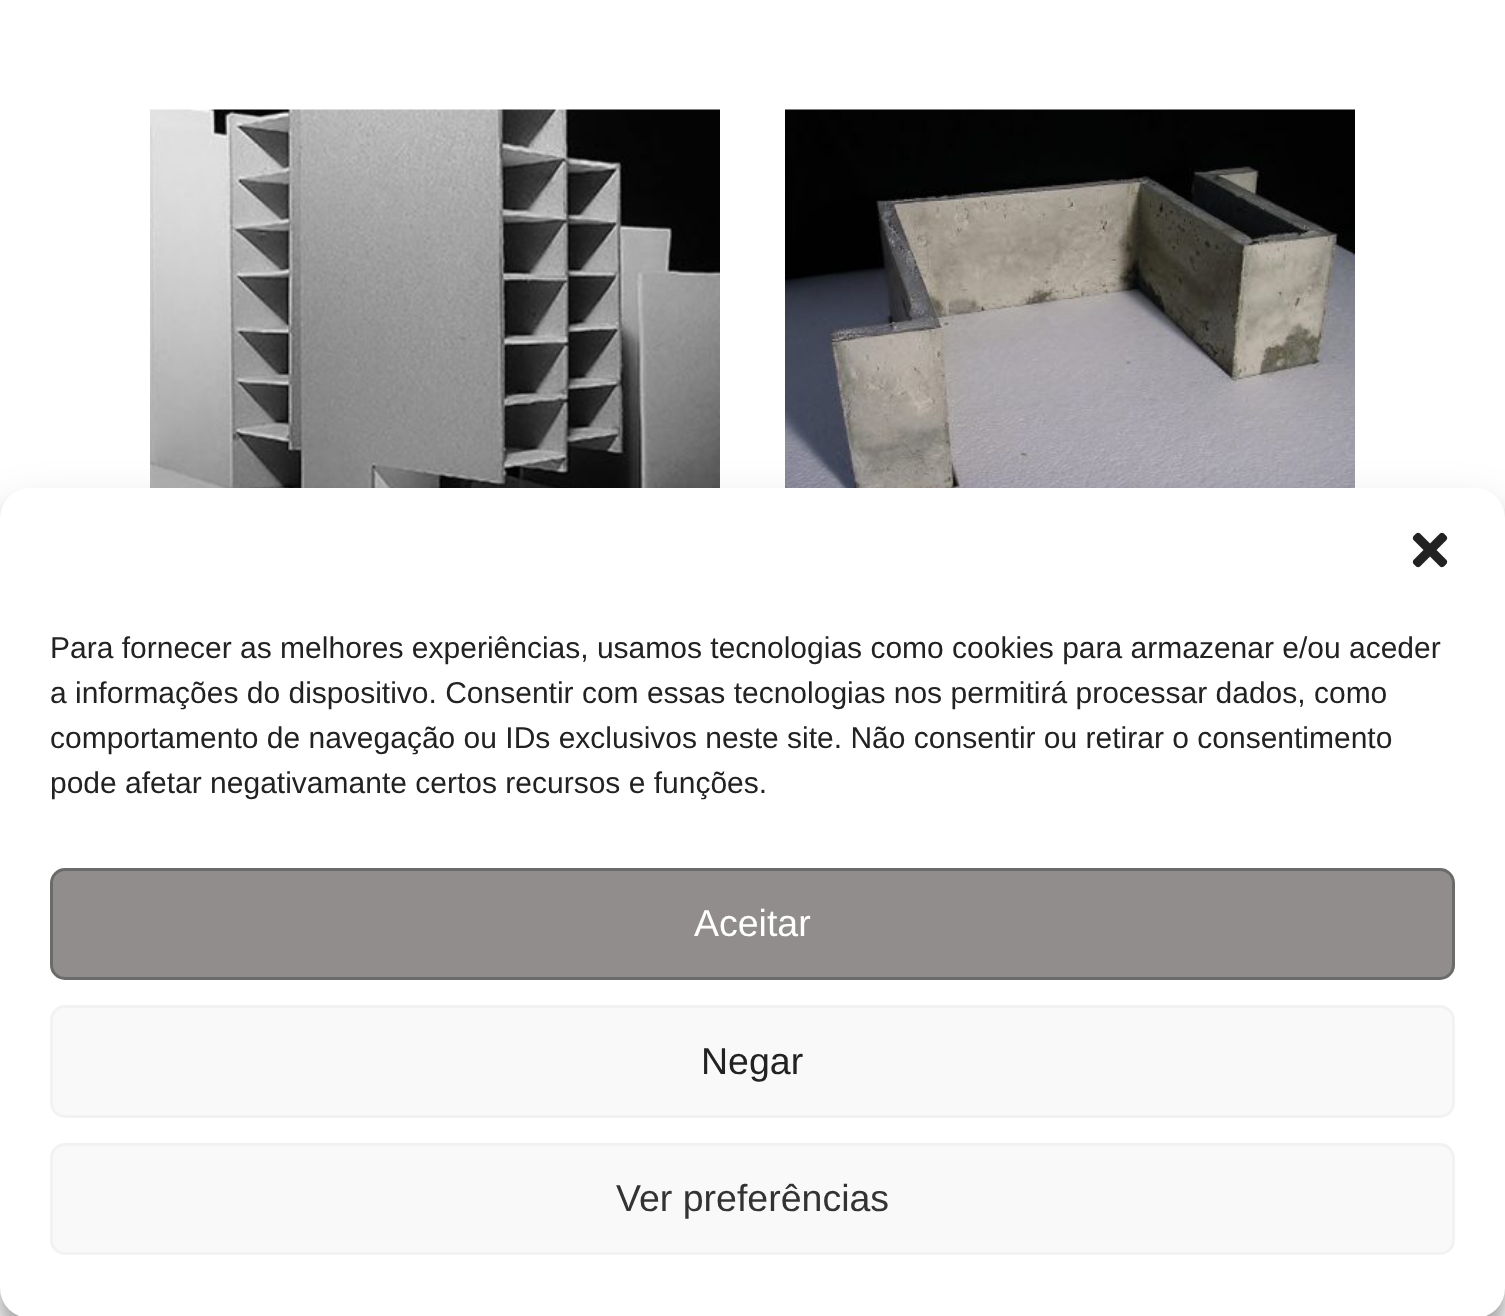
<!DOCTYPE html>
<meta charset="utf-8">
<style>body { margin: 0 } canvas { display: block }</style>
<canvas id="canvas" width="1505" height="1316"></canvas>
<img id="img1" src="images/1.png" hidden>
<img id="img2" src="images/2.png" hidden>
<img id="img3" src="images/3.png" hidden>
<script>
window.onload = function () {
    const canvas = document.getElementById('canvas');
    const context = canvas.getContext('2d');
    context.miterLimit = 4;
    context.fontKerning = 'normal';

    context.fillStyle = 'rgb(255, 255, 255)';
    context.fillRect(0, 0, 1505, 1316);
    context.drawImage(document.getElementById('img1'), 150, 109, 570, 379);
    context.drawImage(document.getElementById('img2'), 785, 109, 570, 379);
    context.fillStyle = 'rgba(0, 0, 0, 0.23)';
    context.filter = 'blur(7.5px)';
    context.beginPath();
    context.roundRect(0, 503, 1505, 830, 30);
    context.fill();
    context.filter = 'none';
    context.fillStyle = 'rgba(0, 0, 0, 0.19)';
    context.filter = 'blur(25px)';
    context.beginPath();
    context.roundRect(0, 513, 1505, 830, 30);
    context.fill();
    context.filter = 'none';
    context.fillStyle = 'rgb(255, 255, 255)';
    context.beginPath();
    context.roundRect(0, 488, 1505, 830, 30);
    context.fill();
    context.drawImage(document.getElementById('img3'), 1412, 532, 36, 36);
    context.fillStyle = 'rgb(146, 141, 141)';
    context.beginPath();
    context.roundRect(51.5, 869.5, 1402, 109, 13.5);
    context.fill();
    context.strokeStyle = 'rgb(107, 107, 107)';
    context.lineWidth = 3;
    context.stroke();
    context.fillStyle = 'rgb(249, 249, 249)';
    context.beginPath();
    context.roundRect(51.5, 1006.5, 1402, 110, 13.5);
    context.fill();
    context.strokeStyle = 'rgb(242, 242, 242)';
    context.stroke();
    context.beginPath();
    context.roundRect(51.5, 1144.5, 1402, 109, 13.5);
    context.fill();
    context.stroke();
    context.font = '30px Liberation Sans';
    context.fillStyle = 'rgb(34, 34, 34)';
    context.fillText('Para fornecer as melhores experiências, usamos tecnologias como cookies para armazenar e/ou aceder', 50, 658);
    context.fillText('a informações do dispositivo. Consentir com essas tecnologias nos permitirá processar dados, como', 50, 703);
    context.fillText('comportamento de navegação ou IDs exclusivos neste site. Não consentir ou retirar o consentimento', 50, 748);
    context.fillText('pode afetar negativamante certos recursos e funções.', 50, 793);
    context.font = '37.5px Liberation Sans';
    context.fillStyle = 'rgb(255, 255, 255)';
    context.fillText('Aceitar', 694, 936);
    context.fillStyle = 'rgb(34, 34, 34)';
    context.fillText('Negar', 701, 1074);
    context.fillStyle = 'rgb(51, 51, 51)';
    context.fillText('Ver preferências', 616, 1211);
};
</script>
